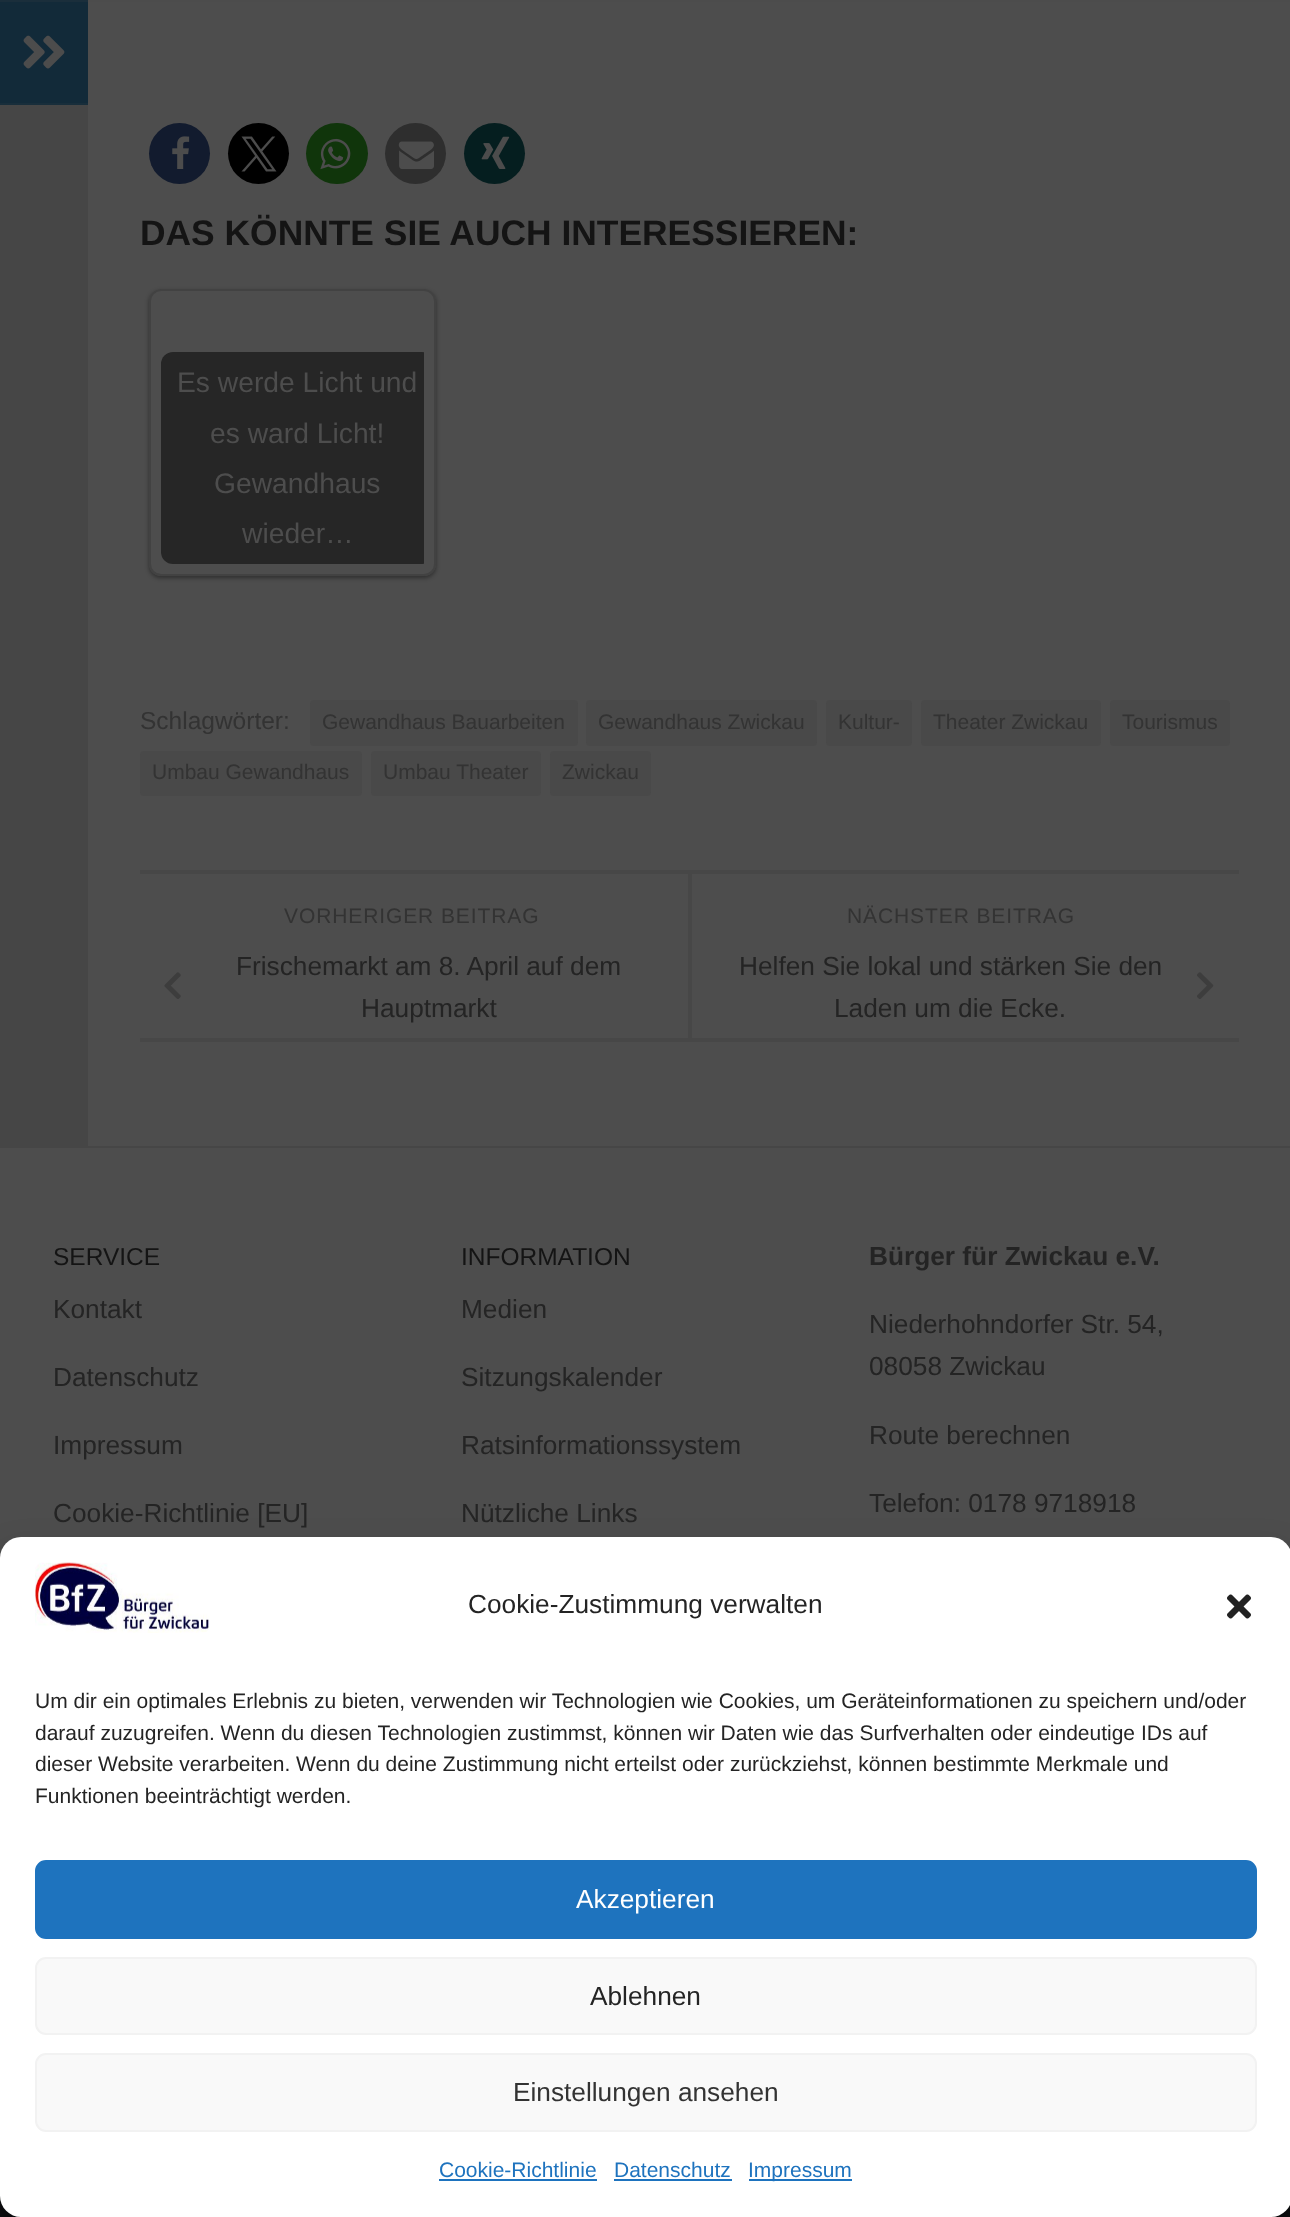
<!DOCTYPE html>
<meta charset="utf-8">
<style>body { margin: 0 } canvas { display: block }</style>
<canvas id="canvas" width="1290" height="2217"></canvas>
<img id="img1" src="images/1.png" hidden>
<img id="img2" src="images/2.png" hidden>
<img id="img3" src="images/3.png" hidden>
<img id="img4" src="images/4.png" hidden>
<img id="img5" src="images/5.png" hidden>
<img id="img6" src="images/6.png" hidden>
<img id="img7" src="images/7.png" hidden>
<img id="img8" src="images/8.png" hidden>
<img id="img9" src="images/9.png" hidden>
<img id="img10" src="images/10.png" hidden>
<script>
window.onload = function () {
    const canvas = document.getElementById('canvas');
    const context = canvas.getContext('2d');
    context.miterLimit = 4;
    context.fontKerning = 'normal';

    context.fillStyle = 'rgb(70, 70, 70)';
    context.fillRect(0, 0, 1290, 2217);
    context.fillStyle = 'rgb(77, 77, 77)';
    context.fillRect(88, 0, 1202, 1146);
    context.fillStyle = 'rgb(18, 42, 57)';
    context.fillRect(0, 0, 88, 103);
    context.fillStyle = 'rgba(77, 77, 77, 0.15)';
    context.beginPath();
    context.moveTo(0, 0);
    context.lineTo(0, 2);
    context.lineTo(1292, 2);
    context.lineTo(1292, -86);
    context.lineTo(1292, 0);
    context.closePath();
    context.fill();
    context.fillStyle = 'rgb(24, 46, 59)';
    context.fillRect(0, 103, 88, 2);
    context.drawImage(document.getElementById('img1'), 23, 35, 42, 34);
    context.fillStyle = 'rgb(18, 27, 46)';
    context.beginPath();
    context.arc(179.5, 153.5, 30.5, 0, 2 * Math.PI);
    context.fill();
    context.drawImage(document.getElementById('img2'), 172, 136, 18, 33);
    context.fillStyle = 'rgb(0, 0, 0)';
    context.beginPath();
    context.arc(258.5, 153.5, 30.5, 0, 2 * Math.PI);
    context.fill();
    context.drawImage(document.getElementById('img3'), 241, 136, 36, 36);
    context.fillStyle = 'rgb(16, 53, 11)';
    context.beginPath();
    context.roundRect(306, 123, 62, 61, 30.5);
    context.fill();
    context.drawImage(document.getElementById('img4'), 320, 138, 31, 32);
    context.fillStyle = 'rgb(46, 46, 46)';
    context.beginPath();
    context.arc(415.5, 153.5, 30.5, 0, 2 * Math.PI);
    context.fill();
    context.drawImage(document.getElementById('img5'), 398, 141, 36, 29);
    context.fillStyle = 'rgb(5, 30, 31)';
    context.beginPath();
    context.arc(494.5, 153.5, 30.5, 0, 2 * Math.PI);
    context.fill();
    context.drawImage(document.getElementById('img6'), 481, 136, 29, 33);
    context.save();
    context.beginPath();
    context.moveTo(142, 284);
    context.lineTo(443, 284);
    context.lineTo(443, 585);
    context.lineTo(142, 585);
    context.closePath();
    context.moveTo(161, 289);
    context.lineTo(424, 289);
    context.bezierCurveTo(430.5, 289, 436, 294.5, 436, 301);
    context.lineTo(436, 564);
    context.bezierCurveTo(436, 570.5, 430.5, 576, 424, 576);
    context.lineTo(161, 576);
    context.bezierCurveTo(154.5, 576, 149, 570.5, 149, 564);
    context.lineTo(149, 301);
    context.bezierCurveTo(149, 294.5, 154.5, 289, 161, 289);
    context.closePath();
    context.clip('evenodd');
    context.fillStyle = 'rgba(0, 0, 0, 0.4)';
    context.filter = 'blur(2px)';
    context.beginPath();
    context.roundRect(149, 291, 287, 287, 12);
    context.fill();
    context.filter = 'none';
    context.restore();
    context.beginPath();
    context.roundRect(150, 290, 285, 285, 11);
    context.strokeStyle = 'rgb(66, 66, 66)';
    context.lineWidth = 2;
    context.stroke();
    context.save();
    context.beginPath();
    context.rect(161, 301, 263, 263);
    context.clip();
    context.fillStyle = 'rgb(38, 38, 38)';
    context.beginPath();
    context.roundRect(161, 352, 273, 212, 12);
    context.fill();
    context.restore();
    context.fillStyle = 'rgb(73, 73, 73)';
    context.beginPath();
    context.roundRect(310, 700, 268, 46, 4);
    context.fill();
    context.beginPath();
    context.roundRect(586, 700, 231, 46, 4);
    context.fill();
    context.beginPath();
    context.roundRect(826, 700, 86, 46, 4);
    context.fill();
    context.beginPath();
    context.roundRect(921, 700, 180, 46, 4);
    context.fill();
    context.beginPath();
    context.roundRect(1110, 700, 120, 46, 4);
    context.fill();
    context.beginPath();
    context.roundRect(140, 751, 222, 45, 4);
    context.fill();
    context.beginPath();
    context.roundRect(371, 751, 170, 45, 4);
    context.fill();
    context.beginPath();
    context.roundRect(550, 751, 101, 45, 4);
    context.fill();
    context.fillStyle = 'rgb(71, 71, 71)';
    context.fillRect(140, 870, 1099, 4);
    context.fillRect(140, 1038, 1099, 4);
    context.drawImage(document.getElementById('img7'), 164, 972, 17, 27);
    context.beginPath();
    context.moveTo(688, 873);
    context.lineTo(688, 1038);
    context.lineTo(1237, 1038);
    context.lineTo(690, 1038);
    context.lineTo(690, 873);
    context.lineTo(1237, 873);
    context.closePath();
    context.fill();
    context.fillRect(690, 873, 2, 165);
    context.drawImage(document.getElementById('img8'), 1197, 972, 17, 27);
    context.fillStyle = 'rgb(77, 77, 77)';
    context.fillRect(0, 1148, 1290, 410);
    context.fillStyle = 'rgb(15, 16, 18)';
    context.fillRect(0, 2196, 1290, 21);
    context.fillStyle = 'rgba(0, 0, 0, 0.23)';
    context.filter = 'blur(5px)';
    context.beginPath();
    context.roundRect(0, 1547, 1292, 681, 21);
    context.fill();
    context.filter = 'none';
    context.fillStyle = 'rgba(0, 0, 0, 0.19)';
    context.filter = 'blur(17.5px)';
    context.beginPath();
    context.roundRect(0, 1554, 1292, 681, 21);
    context.fill();
    context.filter = 'none';
    context.fillStyle = 'rgb(255, 255, 255)';
    context.beginPath();
    context.roundRect(0, 1537, 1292, 680, 21);
    context.fill();
    context.drawImage(document.getElementById('img9'), 35, 1562, 175, 71);
    context.drawImage(document.getElementById('img10'), 1227, 1594, 24, 25);
    context.fillStyle = 'rgb(30, 115, 190)';
    context.beginPath();
    context.roundRect(36, 1861, 1220, 77, 10);
    context.fill();
    context.strokeStyle = 'rgb(30, 115, 190)';
    context.stroke();
    context.fillStyle = 'rgb(249, 249, 249)';
    context.beginPath();
    context.roundRect(36, 1958, 1220, 76, 10);
    context.fill();
    context.strokeStyle = 'rgb(242, 242, 242)';
    context.stroke();
    context.beginPath();
    context.roundRect(36, 2054, 1220, 77, 10);
    context.fill();
    context.stroke();
    context.fillStyle = 'rgb(30, 115, 190)';
    context.fillRect(439, 2179, 158, 2);
    context.fillRect(614, 2179, 118, 2);
    context.fillRect(749, 2179, 103, 2);
    context.font = 'bold 35.4px Liberation Sans';
    context.fillStyle = 'rgb(20, 20, 20)';
    context.fillText('DAS KÖNNTE SIE AUCH INTERESSIEREN:', 140, 245);
    context.font = '28.25px Liberation Sans';
    context.fillStyle = 'rgb(77, 77, 77)';
    context.fillText('Es werde Licht und', 177, 392);
    context.fillText('es ward Licht!', 210, 443);
    context.fillText('Gewandhaus', 214, 493);
    context.fillText('wieder…', 242, 543);
    context.font = '24.5px Liberation Sans';
    context.fillStyle = 'rgb(51, 51, 51)';
    context.fillText('Schlagwörter:', 140, 729);
    context.font = '21px Liberation Sans';
    context.fillText('Gewandhaus Bauarbeiten', 322, 729);
    context.fillText('Gewandhaus Zwickau', 598, 729);
    context.fillText('Kultur-', 838, 729);
    context.fillText('Theater Zwickau', 933, 729);
    context.fillText('Tourismus', 1122, 729);
    context.fillText('Umbau Gewandhaus', 152, 779);
    context.fillText('Umbau Theater', 383, 779);
    context.fillText('Zwickau', 562, 779);
    context.letterSpacing = '0.9px';
    context.fillText('VORHERIGER BEITRAG', 284, 923);
    context.letterSpacing = '0px';
    context.font = '26.25px Liberation Sans';
    context.fillStyle = 'rgb(36, 36, 36)';
    context.fillText('Frischemarkt am 8. April auf dem', 236, 975);
    context.fillText('Hauptmarkt', 361, 1017);
    context.letterSpacing = '0.9px';
    context.font = '21px Liberation Sans';
    context.fillStyle = 'rgb(51, 51, 51)';
    context.fillText('NÄCHSTER BEITRAG', 847, 923);
    context.letterSpacing = '0px';
    context.font = '26.25px Liberation Sans';
    context.fillStyle = 'rgb(36, 36, 36)';
    context.fillText('Helfen Sie lokal und stärken Sie den', 739, 975);
    context.fillText('Laden um die Ecke.', 834, 1017);
    context.font = '24.5px Liberation Sans';
    context.fillStyle = 'rgb(20, 20, 20)';
    context.fillText('SERVICE', 53, 1265);
    context.font = '26.25px Liberation Sans';
    context.fillStyle = 'rgb(36, 36, 36)';
    context.fillText('Kontakt', 53, 1318);
    context.fillText('Datenschutz', 53, 1386);
    context.fillText('Impressum', 53, 1454);
    context.fillText('Cookie-Richtlinie [EU]', 53, 1522);
    context.font = '24.5px Liberation Sans';
    context.fillStyle = 'rgb(20, 20, 20)';
    context.fillText('INFORMATION', 461, 1265);
    context.font = '26.25px Liberation Sans';
    context.fillStyle = 'rgb(36, 36, 36)';
    context.fillText('Medien', 461, 1318);
    context.fillText('Sitzungskalender', 461, 1386);
    context.fillText('Ratsinformationssystem', 461, 1454);
    context.fillText('Nützliche Links', 461, 1522);
    context.font = 'bold 26.25px Liberation Sans';
    context.fillText('Bürger für Zwickau e.V.', 869, 1265);
    context.font = '26.25px Liberation Sans';
    context.fillText('Niederhohndorfer Str. 54,', 869, 1333);
    context.fillText('08058 Zwickau', 869, 1375);
    context.fillText('Route berechnen', 869, 1444);
    context.fillText('Telefon: 0178 9718918', 869, 1512);
    context.fillText('Cookie-Zustimmung verwalten', 468, 1613);
    context.font = '21px Liberation Sans';
    context.fillText('Um dir ein optimales Erlebnis zu bieten, verwenden wir Technologien wie Cookies, um Geräteinformationen zu speichern und/oder', 35, 1708);
    context.fillText('darauf zuzugreifen. Wenn du diesen Technologien zustimmst, können wir Daten wie das Surfverhalten oder eindeutige IDs auf', 35, 1740);
    context.fillText('dieser Website verarbeiten. Wenn du deine Zustimmung nicht erteilst oder zurückziehst, können bestimmte Merkmale und', 35, 1771);
    context.fillText('Funktionen beeinträchtigt werden.', 35, 1803);
    context.font = '26.25px Liberation Sans';
    context.fillStyle = 'rgb(255, 255, 255)';
    context.fillText('Akzeptieren', 576, 1908);
    context.fillStyle = 'rgb(36, 36, 36)';
    context.fillText('Ablehnen', 590, 2005);
    context.fillStyle = 'rgb(51, 51, 51)';
    context.fillText('Einstellungen ansehen', 513, 2101);
    context.font = '21px Liberation Sans';
    context.fillStyle = 'rgb(30, 115, 190)';
    context.fillText('Cookie-Richtlinie', 439, 2177);
    context.fillText('Datenschutz', 614, 2177);
    context.fillText('Impressum', 748, 2177);
};
</script>
